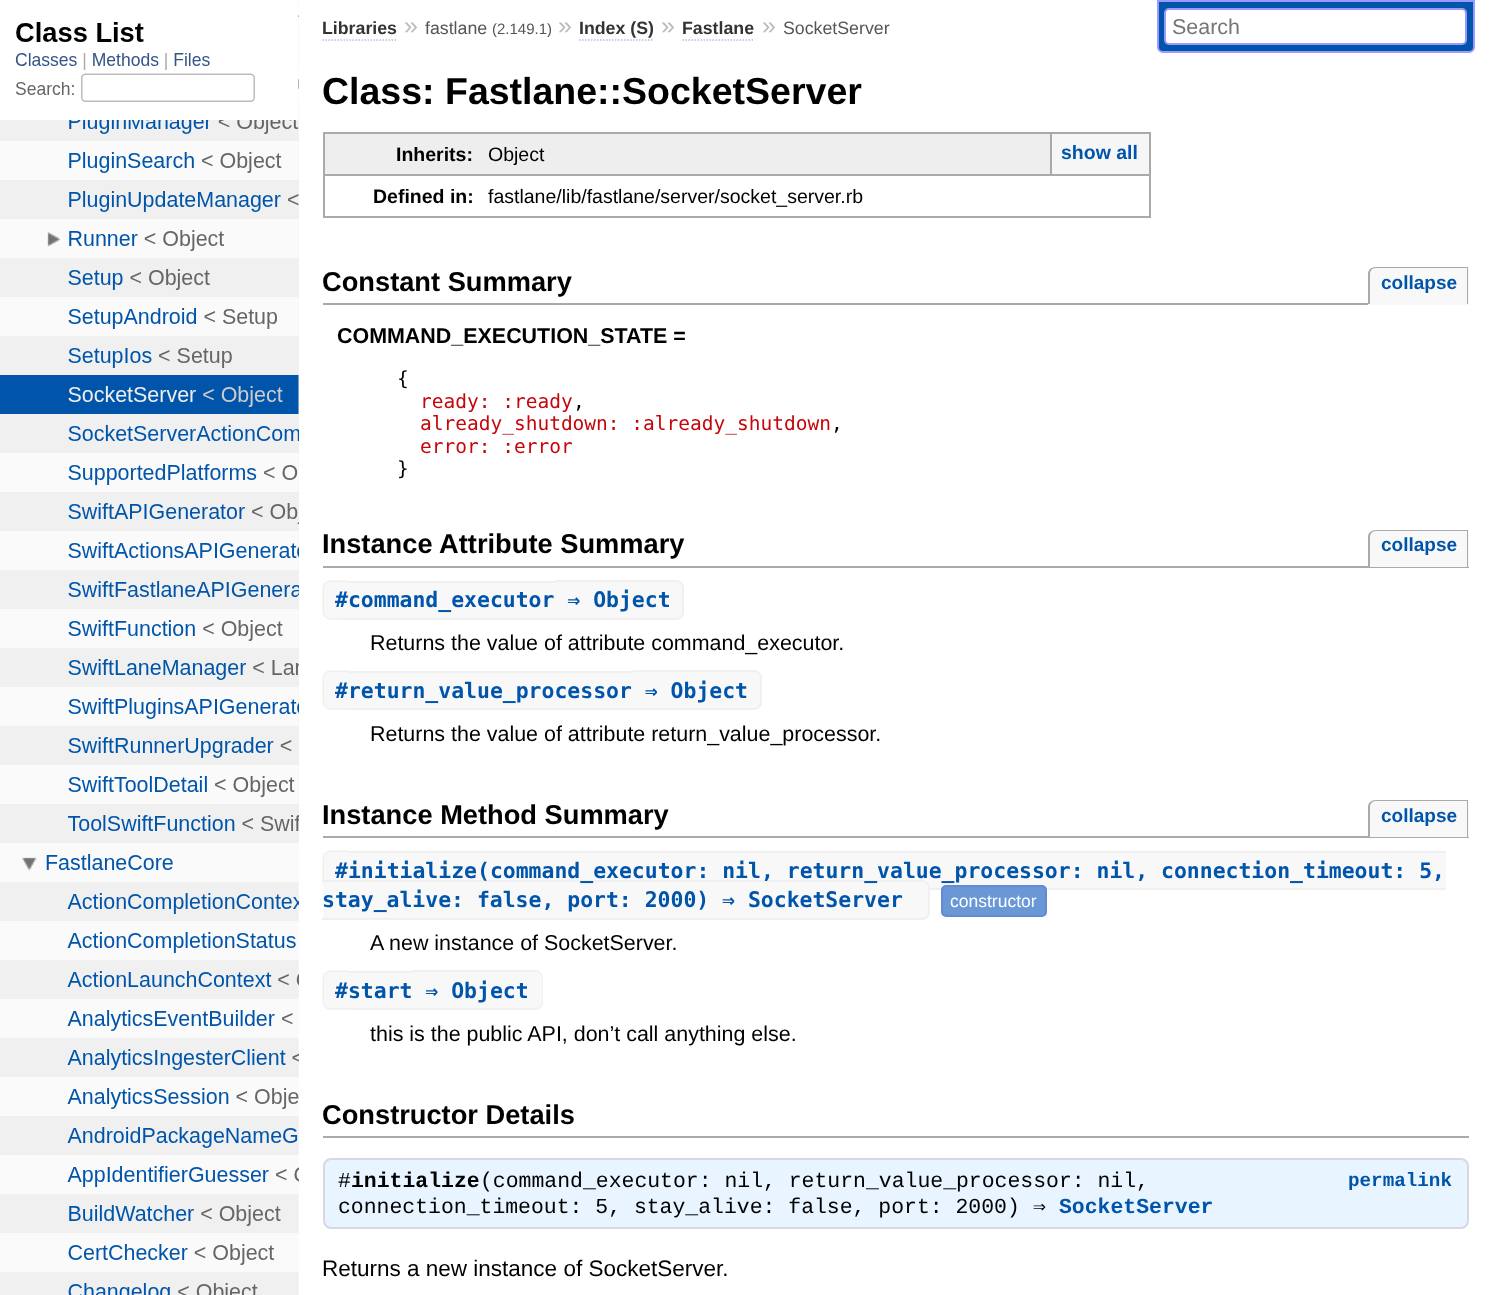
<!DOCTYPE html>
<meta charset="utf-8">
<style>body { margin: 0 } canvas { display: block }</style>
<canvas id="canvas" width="1492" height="1295"></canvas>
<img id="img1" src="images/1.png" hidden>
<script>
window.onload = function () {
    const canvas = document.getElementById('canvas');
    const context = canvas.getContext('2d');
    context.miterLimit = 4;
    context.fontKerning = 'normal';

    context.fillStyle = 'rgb(255, 255, 255)';
    context.fillRect(0, 0, 1492, 1295);
    context.drawImage(document.getElementById('img1'), 0, 0, 299, 1295);
    context.beginPath();
    context.moveTo(322.5, 40);
    context.lineTo(397.5, 40);
    context.strokeStyle = 'rgb(187, 187, 221)';
    context.lineWidth = 1.5;
    context.setLineDash([1.5, 1.5]);
    context.stroke();
    context.beginPath();
    context.moveTo(579, 40);
    context.lineTo(654, 40);
    context.stroke();
    context.beginPath();
    context.moveTo(682.5, 40);
    context.lineTo(754.5, 40);
    context.stroke();
    context.fillStyle = 'rgb(0, 85, 170)';
    context.beginPath();
    context.roundRect(1158, 1, 316, 51, [0, 0, 5, 5]);
    context.fill();
    context.strokeStyle = 'rgb(153, 153, 255)';
    context.lineWidth = 2;
    context.setLineDash([]);
    context.stroke();
    context.fillStyle = 'rgb(255, 255, 255)';
    context.beginPath();
    context.roundRect(1165, 9, 301, 35, 4);
    context.fill();
    context.stroke();
    context.fillStyle = 'rgb(238, 238, 238)';
    context.fillRect(325, 134, 725, 40);
    context.fillStyle = 'rgb(170, 170, 170)';
    context.fillRect(323, 132, 828, 2);
    context.fillRect(323, 132, 2, 42);
    context.fillRect(323, 174, 828, 2);
    context.fillRect(1149, 132, 2, 86);
    context.fillStyle = 'rgb(246, 246, 246)';
    context.fillRect(1052, 134, 97, 40);
    context.fillStyle = 'rgb(170, 170, 170)';
    context.fillRect(1050, 134, 2, 40);
    context.fillRect(323, 216, 166, 2);
    context.fillRect(323, 174, 2, 44);
    context.fillRect(489, 216, 662, 2);
    context.fillRect(323, 303, 1045, 2);
    context.fillStyle = 'rgb(248, 248, 248)';
    context.beginPath();
    context.roundRect(1368, 267, 101, 38, [8, 0, 0, 0]);
    context.fill();
    context.fillStyle = 'rgb(170, 170, 170)';
    context.beginPath();
    context.moveTo(1376, 267);
    context.lineTo(1468, 267);
    context.lineTo(1468, 304);
    context.lineTo(1368, 304);
    context.lineTo(1368, 274);
    context.bezierCurveTo(1368, 270, 1371, 267, 1376, 267);
    context.closePath();
    context.moveTo(1376, 268);
    context.lineTo(1467, 268);
    context.lineTo(1467, 304);
    context.lineTo(1370, 304);
    context.lineTo(1370, 274);
    context.bezierCurveTo(1370, 271, 1372, 268, 1376, 268);
    context.closePath();
    context.fill('evenodd');
    context.fillRect(323, 566, 1146, 2);
    context.fillStyle = 'rgb(248, 248, 248)';
    context.beginPath();
    context.roundRect(1368, 530, 101, 37, [8, 0, 0, 0]);
    context.fill();
    context.fillStyle = 'rgb(170, 170, 170)';
    context.beginPath();
    context.moveTo(1376, 530);
    context.lineTo(1468, 530);
    context.lineTo(1468, 567);
    context.lineTo(1368, 567);
    context.lineTo(1368, 537);
    context.bezierCurveTo(1368, 533, 1371, 530, 1376, 530);
    context.closePath();
    context.moveTo(1376, 531);
    context.lineTo(1467, 531);
    context.lineTo(1467, 567);
    context.lineTo(1370, 567);
    context.lineTo(1370, 537);
    context.bezierCurveTo(1370, 534, 1372, 531, 1376, 531);
    context.closePath();
    context.fill('evenodd');
    context.fillStyle = 'rgb(248, 248, 248)';
    context.beginPath();
    context.roundRect(323, 581, 25, 39, [8, 0, 0, 8]);
    context.fill();
    context.fillStyle = 'rgb(240, 240, 240)';
    context.beginPath();
    context.moveTo(330, 580.5);
    context.lineTo(348, 580.5);
    context.lineTo(348, 619.5);
    context.lineTo(330, 619.5);
    context.bezierCurveTo(326, 619.5, 322.5, 616, 322.5, 612);
    context.lineTo(322.5, 588);
    context.bezierCurveTo(322.5, 584, 326, 580.5, 330, 580.5);
    context.closePath();
    context.moveTo(330, 582);
    context.lineTo(348, 582);
    context.lineTo(348, 618);
    context.lineTo(330, 618);
    context.bezierCurveTo(326.5, 618, 324, 615.5, 324, 612);
    context.lineTo(324, 588);
    context.bezierCurveTo(324, 584.5, 326.5, 582, 330, 582);
    context.closePath();
    context.fill('evenodd');
    context.fillStyle = 'rgb(248, 248, 248)';
    context.fillRect(348, 583, 207, 35);
    context.fillStyle = 'rgb(240, 240, 240)';
    context.fillRect(348, 581, 207, 2);
    context.fillRect(348, 618, 207, 2);
    context.fillStyle = 'rgb(248, 248, 248)';
    context.beginPath();
    context.roundRect(555, 581, 129, 39, [0, 8, 8, 0]);
    context.fill();
    context.fillStyle = 'rgb(240, 240, 240)';
    context.beginPath();
    context.moveTo(555, 580);
    context.lineTo(676, 580);
    context.bezierCurveTo(681, 580, 684, 584, 684, 588);
    context.lineTo(684, 612);
    context.bezierCurveTo(684, 616, 681, 620, 676, 620);
    context.lineTo(555, 620);
    context.closePath();
    context.moveTo(555, 582);
    context.lineTo(676, 582);
    context.bezierCurveTo(680, 582, 682, 585, 682, 588);
    context.lineTo(682, 612);
    context.bezierCurveTo(682, 615, 680, 618, 676, 618);
    context.lineTo(555, 618);
    context.closePath();
    context.fill('evenodd');
    context.fillStyle = 'rgb(248, 248, 248)';
    context.beginPath();
    context.roundRect(323, 671, 25, 39, [8, 0, 0, 8]);
    context.fill();
    context.fillStyle = 'rgb(240, 240, 240)';
    context.beginPath();
    context.moveTo(330, 670.5);
    context.lineTo(348, 670.5);
    context.lineTo(348, 709.5);
    context.lineTo(330, 709.5);
    context.bezierCurveTo(326, 709.5, 322.5, 706, 322.5, 702);
    context.lineTo(322.5, 678);
    context.bezierCurveTo(322.5, 674, 326, 670.5, 330, 670.5);
    context.closePath();
    context.moveTo(330, 672);
    context.lineTo(348, 672);
    context.lineTo(348, 708);
    context.lineTo(330, 708);
    context.bezierCurveTo(326.5, 708, 324, 705.5, 324, 702);
    context.lineTo(324, 678);
    context.bezierCurveTo(324, 674.5, 326.5, 672, 330, 672);
    context.closePath();
    context.fill('evenodd');
    context.fillStyle = 'rgb(248, 248, 248)';
    context.fillRect(348, 673, 285, 35);
    context.fillStyle = 'rgb(240, 240, 240)';
    context.fillRect(348, 671, 285, 2);
    context.fillRect(348, 708, 285, 2);
    context.fillStyle = 'rgb(248, 248, 248)';
    context.beginPath();
    context.roundRect(633, 671, 129, 39, [0, 8, 8, 0]);
    context.fill();
    context.fillStyle = 'rgb(240, 240, 240)';
    context.beginPath();
    context.moveTo(633, 670);
    context.lineTo(754, 670);
    context.bezierCurveTo(759, 670, 762, 674, 762, 678);
    context.lineTo(762, 702);
    context.bezierCurveTo(762, 706, 759, 710, 754, 710);
    context.lineTo(633, 710);
    context.closePath();
    context.moveTo(633, 672);
    context.lineTo(754, 672);
    context.bezierCurveTo(758, 672, 760, 675, 760, 678);
    context.lineTo(760, 702);
    context.bezierCurveTo(760, 705, 758, 708, 754, 708);
    context.lineTo(633, 708);
    context.closePath();
    context.fill('evenodd');
    context.fillStyle = 'rgb(170, 170, 170)';
    context.fillRect(323, 836, 1146, 2);
    context.fillStyle = 'rgb(248, 248, 248)';
    context.beginPath();
    context.roundRect(1368, 800, 101, 37, [8, 0, 0, 0]);
    context.fill();
    context.fillStyle = 'rgb(170, 170, 170)';
    context.beginPath();
    context.moveTo(1376, 800);
    context.lineTo(1468, 800);
    context.lineTo(1468, 837);
    context.lineTo(1368, 837);
    context.lineTo(1368, 807);
    context.bezierCurveTo(1368, 803, 1371, 800, 1376, 800);
    context.closePath();
    context.moveTo(1376, 801);
    context.lineTo(1467, 801);
    context.lineTo(1467, 837);
    context.lineTo(1370, 837);
    context.lineTo(1370, 807);
    context.bezierCurveTo(1370, 804, 1372, 801, 1376, 801);
    context.closePath();
    context.fill('evenodd');
    context.fillStyle = 'rgb(248, 248, 248)';
    context.beginPath();
    context.roundRect(323, 851, 25, 39, [8, 0, 0, 8]);
    context.fill();
    context.fillStyle = 'rgb(240, 240, 240)';
    context.beginPath();
    context.moveTo(330, 850.5);
    context.lineTo(348, 850.5);
    context.lineTo(348, 889.5);
    context.lineTo(330, 889.5);
    context.bezierCurveTo(326, 889.5, 322.5, 886, 322.5, 882);
    context.lineTo(322.5, 858);
    context.bezierCurveTo(322.5, 854, 326, 850.5, 330, 850.5);
    context.closePath();
    context.moveTo(330, 852);
    context.lineTo(348, 852);
    context.lineTo(348, 888);
    context.lineTo(330, 888);
    context.bezierCurveTo(326.5, 888, 324, 885.5, 324, 882);
    context.lineTo(324, 858);
    context.bezierCurveTo(324, 854.5, 326.5, 852, 330, 852);
    context.closePath();
    context.fill('evenodd');
    context.fillStyle = 'rgb(248, 248, 248)';
    context.fillRect(348, 853, 129, 27);
    context.fillStyle = 'rgb(240, 240, 240)';
    context.fillRect(348, 851, 1098, 2);
    context.fillStyle = 'rgb(248, 248, 248)';
    context.fillRect(477, 853, 969, 35);
    context.fillStyle = 'rgb(240, 240, 240)';
    context.fillRect(930, 888, 516, 2);
    context.fillStyle = 'rgb(248, 248, 248)';
    context.beginPath();
    context.roundRect(323, 881, 607, 39, [0, 8, 8, 0]);
    context.fill();
    context.fillStyle = 'rgb(240, 240, 240)';
    context.beginPath();
    context.moveTo(322, 880);
    context.lineTo(922, 880);
    context.bezierCurveTo(927, 880, 930, 884, 930, 888);
    context.lineTo(930, 912);
    context.bezierCurveTo(930, 916, 927, 920, 922, 920);
    context.lineTo(322, 920);
    context.closePath();
    context.moveTo(322, 882);
    context.lineTo(922, 882);
    context.bezierCurveTo(926, 882, 928, 885, 928, 888);
    context.lineTo(928, 912);
    context.bezierCurveTo(928, 915, 926, 918, 922, 918);
    context.lineTo(322, 918);
    context.closePath();
    context.fill('evenodd');
    context.fillStyle = 'rgb(106, 152, 214)';
    context.beginPath();
    context.roundRect(942, 886, 104, 30, 4);
    context.fill();
    context.strokeStyle = 'rgb(102, 137, 214)';
    context.stroke();
    context.fillStyle = 'rgb(248, 248, 248)';
    context.beginPath();
    context.roundRect(323, 971, 25, 39, [8, 0, 0, 8]);
    context.fill();
    context.fillStyle = 'rgb(240, 240, 240)';
    context.beginPath();
    context.moveTo(330, 970.5);
    context.lineTo(348, 970.5);
    context.lineTo(348, 1009.5);
    context.lineTo(330, 1009.5);
    context.bezierCurveTo(326, 1009.5, 322.5, 1006, 322.5, 1002);
    context.lineTo(322.5, 978);
    context.bezierCurveTo(322.5, 974, 326, 970.5, 330, 970.5);
    context.closePath();
    context.moveTo(330, 972);
    context.lineTo(348, 972);
    context.lineTo(348, 1008);
    context.lineTo(330, 1008);
    context.bezierCurveTo(326.5, 1008, 324, 1005.5, 324, 1002);
    context.lineTo(324, 978);
    context.bezierCurveTo(324, 974.5, 326.5, 972, 330, 972);
    context.closePath();
    context.fill('evenodd');
    context.fillStyle = 'rgb(248, 248, 248)';
    context.fillRect(348, 973, 65, 35);
    context.fillStyle = 'rgb(240, 240, 240)';
    context.fillRect(348, 971, 65, 2);
    context.fillRect(348, 1008, 65, 2);
    context.fillStyle = 'rgb(248, 248, 248)';
    context.beginPath();
    context.roundRect(413, 971, 130, 39, [0, 8, 8, 0]);
    context.fill();
    context.fillStyle = 'rgb(240, 240, 240)';
    context.beginPath();
    context.moveTo(412, 970);
    context.lineTo(536, 970);
    context.bezierCurveTo(540, 970, 543, 974, 543, 978);
    context.lineTo(543, 1002);
    context.bezierCurveTo(543, 1006, 540, 1010, 536, 1010);
    context.lineTo(412, 1010);
    context.closePath();
    context.moveTo(412, 972);
    context.lineTo(536, 972);
    context.bezierCurveTo(539, 972, 542, 975, 542, 978);
    context.lineTo(542, 1002);
    context.bezierCurveTo(542, 1005, 539, 1008, 536, 1008);
    context.lineTo(412, 1008);
    context.closePath();
    context.fill('evenodd');
    context.fillStyle = 'rgb(170, 170, 170)';
    context.fillRect(323, 1136, 1146, 2);
    context.fillStyle = 'rgb(232, 244, 255)';
    context.beginPath();
    context.roundRect(324, 1159, 1144, 69, 7);
    context.fill();
    context.strokeStyle = 'rgb(216, 216, 229)';
    context.stroke();
    context.font = 'bold 17.75px Liberation Sans';
    context.fillStyle = 'rgb(51, 51, 51)';
    context.fillText('Libraries', 322, 34);
    context.font = '25px Liberation Sans';
    context.fillStyle = 'rgb(187, 187, 187)';
    context.fillText('»', 404, 34);
    context.font = '17.75px Liberation Sans';
    context.fillStyle = 'rgb(85, 85, 85)';
    context.fillText('fastlane', 425, 34);
    context.font = '15px Liberation Sans';
    context.fillText('(2.149.1)', 492, 34);
    context.font = '25px Liberation Sans';
    context.fillStyle = 'rgb(187, 187, 187)';
    context.fillText('»', 558, 34);
    context.font = 'bold 17.75px Liberation Sans';
    context.fillStyle = 'rgb(51, 51, 51)';
    context.fillText('Index (S)', 579, 34);
    context.font = '25px Liberation Sans';
    context.fillStyle = 'rgb(187, 187, 187)';
    context.fillText('»', 661, 34);
    context.font = 'bold 17.75px Liberation Sans';
    context.fillStyle = 'rgb(51, 51, 51)';
    context.fillText('Fastlane', 682, 34);
    context.font = '25px Liberation Sans';
    context.fillStyle = 'rgb(187, 187, 187)';
    context.fillText('»', 762, 34);
    context.font = '17.75px Liberation Sans';
    context.fillStyle = 'rgb(85, 85, 85)';
    context.fillText('SocketServer', 783, 34);
    context.font = '21.45px Liberation Sans';
    context.fillStyle = 'rgb(117, 117, 117)';
    context.fillText('Search', 1172, 34);
    context.font = 'bold 37.5px Liberation Sans';
    context.fillStyle = 'rgb(0, 0, 0)';
    context.fillText('Class: Fastlane::SocketServer', 322, 104);
    context.font = 'bold 19.5px Liberation Sans';
    context.fillText('Inherits:', 396, 161);
    context.font = '19.5px Liberation Sans';
    context.fillText('Object', 488, 161);
    context.font = 'bold 19.5px Liberation Sans';
    context.fillStyle = 'rgb(0, 85, 170)';
    context.fillText('show all', 1061, 159);
    context.fillStyle = 'rgb(0, 0, 0)';
    context.fillText('Defined in:', 373, 203);
    context.font = '19.5px Liberation Sans';
    context.fillText('fastlane/lib/fastlane/server/socket_server.rb', 488, 203);
    context.font = 'bold 27.25px Liberation Sans';
    context.fillText('Constant Summary', 322, 291);
    context.font = 'bold 19px Liberation Sans';
    context.fillStyle = 'rgb(0, 85, 170)';
    context.fillText('collapse', 1381, 289);
    context.font = 'bold 21.45px Liberation Sans';
    context.fillStyle = 'rgb(0, 0, 0)';
    context.fillText('COMMAND_EXECUTION_STATE =', 337, 343);
    context.font = '19.5px DejaVu Sans Mono';
    context.fillText('{', 397, 385);
    context.fillStyle = 'rgb(197, 6, 11)';
    context.fillText('ready: :ready', 420, 408);
    context.fillStyle = 'rgb(0, 0, 0)';
    context.fillText(',', 573, 408);
    context.fillStyle = 'rgb(197, 6, 11)';
    context.fillText('already_shutdown: :already_shutdown', 420, 430);
    context.fillStyle = 'rgb(0, 0, 0)';
    context.fillText(',', 831, 430);
    context.fillStyle = 'rgb(197, 6, 11)';
    context.fillText('error: :error', 420, 453);
    context.fillStyle = 'rgb(0, 0, 0)';
    context.fillText('}', 397, 475);
    context.font = 'bold 27.25px Liberation Sans';
    context.fillText('Instance Attribute Summary', 322, 553);
    context.font = 'bold 19px Liberation Sans';
    context.fillStyle = 'rgb(0, 85, 170)';
    context.fillText('collapse', 1381, 551);
    context.font = 'bold 21.45px DejaVu Sans Mono';
    context.fillText('#command_executor ⇒ Object', 335, 607);
    context.font = '21.45px Liberation Sans';
    context.fillStyle = 'rgb(0, 0, 0)';
    context.fillText('Returns the value of attribute command_executor.', 370, 650);
    context.font = 'bold 21.45px DejaVu Sans Mono';
    context.fillStyle = 'rgb(0, 85, 170)';
    context.fillText('#return_value_processor ⇒ Object', 335, 698);
    context.font = '21.45px Liberation Sans';
    context.fillStyle = 'rgb(0, 0, 0)';
    context.fillText('Returns the value of attribute return_value_processor.', 370, 741);
    context.font = 'bold 27.25px Liberation Sans';
    context.fillText('Instance Method Summary', 322, 824);
    context.font = 'bold 19px Liberation Sans';
    context.fillStyle = 'rgb(0, 85, 170)';
    context.fillText('collapse', 1381, 822);
    context.font = 'bold 21.45px DejaVu Sans Mono';
    context.fillText('#initialize(command_executor: nil, return_value_processor: nil, connection_timeout: 5,', 335, 878);
    context.fillText('stay_alive: false, port: 2000) ⇒ SocketServer', 322, 907);
    context.font = '17.5px Liberation Sans';
    context.fillStyle = 'rgb(255, 255, 255)';
    context.fillText('constructor', 950, 907);
    context.font = '21.45px Liberation Sans';
    context.fillStyle = 'rgb(0, 0, 0)';
    context.fillText('A new instance of SocketServer.', 370, 950);
    context.font = 'bold 21.45px DejaVu Sans Mono';
    context.fillStyle = 'rgb(0, 85, 170)';
    context.fillText('#start ⇒ Object', 335, 998);
    context.font = '21.45px Liberation Sans';
    context.fillStyle = 'rgb(0, 0, 0)';
    context.fillText('this is the public API, don’t call anything else.', 370, 1041);
    context.font = 'bold 27.25px Liberation Sans';
    context.fillText('Constructor Details', 322, 1124);
    context.font = '21.45px Liberation Mono';
    context.fillText('#', 338, 1187);
    context.font = 'bold 21.45px Liberation Mono';
    context.fillText('initialize', 351, 1187);
    context.font = '21.45px Liberation Mono';
    context.fillText('(command_executor: nil, return_value_processor: nil,', 480, 1187);
    context.font = 'bold 19.25px Liberation Mono';
    context.fillStyle = 'rgb(0, 85, 170)';
    context.fillText('permalink', 1348, 1186);
    context.font = '21.45px Liberation Mono';
    context.fillStyle = 'rgb(0, 0, 0)';
    context.fillText('connection_timeout: 5, stay_alive: false, port: 2000)', 338, 1213);
    context.font = '21.45px DejaVu Sans Mono';
    context.fillText('⇒', 1033, 1213);
    context.font = 'bold 21.45px Liberation Mono';
    context.fillStyle = 'rgb(0, 85, 170)';
    context.fillText('SocketServer', 1059, 1213);
    context.font = '22.5px Liberation Sans';
    context.fillStyle = 'rgb(0, 0, 0)';
    context.fillText('Returns a new instance of SocketServer.', 322, 1276);
};
</script>
